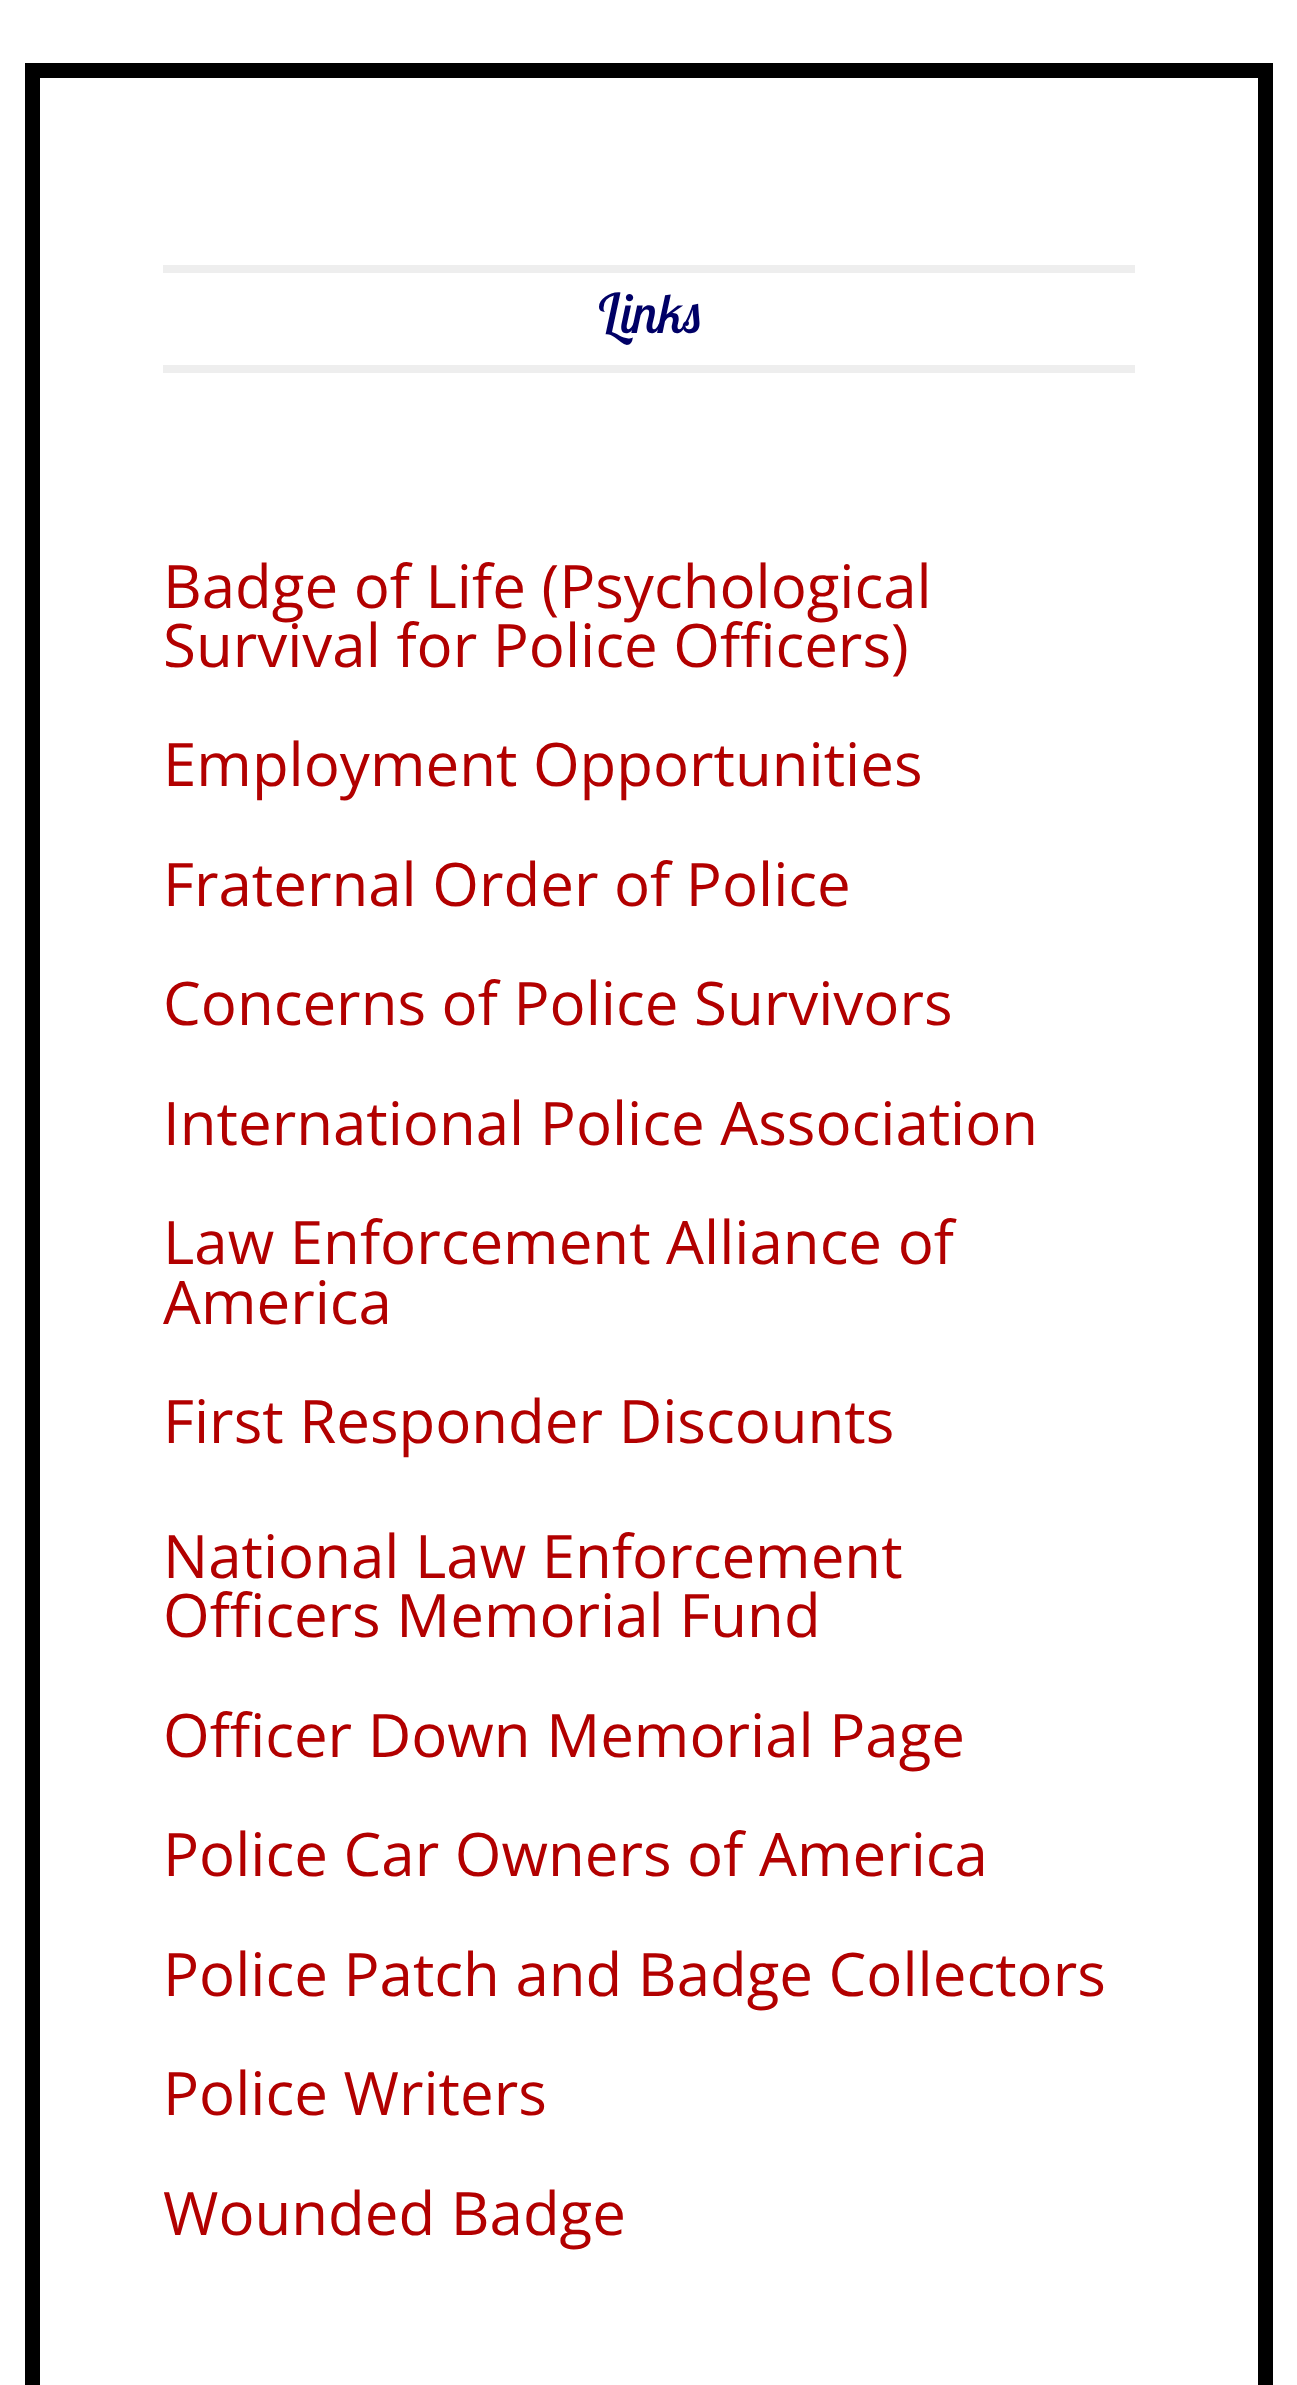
<!DOCTYPE html>
<meta charset="utf-8">
<style>body { margin: 0 } canvas { display: block }</style>
<canvas id="canvas" width="1297" height="2385"></canvas>
<script>
window.onload = function () {
    const canvas = document.getElementById('canvas');
    const context = canvas.getContext('2d');
    context.miterLimit = 4;
    context.fontKerning = 'none';

    context.fillStyle = 'rgb(255, 255, 255)';
    context.fillRect(0, 0, 1297, 2385);
    context.fillStyle = 'rgb(0, 0, 0)';
    context.fillRect(40, 63, 1218, 15);
    context.fillRect(1258, 63, 15, 2322);
    context.fillRect(25, 63, 15, 2322);
    context.fillStyle = 'rgb(238, 238, 238)';
    context.fillRect(163, 265, 972, 8);
    context.fillRect(163, 365, 972, 8);
    context.font = 'italic 55px Lobster Two';
    context.fillStyle = 'rgb(0, 0, 102)';
    context.fillText('Links', 596, 333);
    context.font = '60px Open Sans';
    context.fillStyle = 'rgb(178, 0, 0)';
    context.fillText('Badge of Life (Psychological', 163, 608);
    context.fillText('Survival for Police Officers)', 163, 667);
    context.fillText('Employment Opportunities', 163, 786);
    context.fillText('Fraternal Order of Police', 163, 906);
    context.fillText('Concerns of Police Survivors', 163, 1025);
    context.fillText('International Police Association', 163, 1145);
    context.fillText('Law Enforcement Alliance of', 163, 1264);
    context.fillText('America', 163, 1324);
    context.fillText('First Responder Discounts', 163, 1443);
    context.fillText('National Law Enforcement', 163, 1578);
    context.fillText('Officers Memorial Fund', 163, 1637);
    context.fillText('Officer Down Memorial Page', 163, 1757);
    context.fillText('Police Car Owners of America', 163, 1876);
    context.fillText('Police Patch and Badge Collectors', 163, 1996);
    context.fillText('Police Writers', 163, 2115);
    context.fillText('Wounded Badge', 163, 2235);
};
</script>
